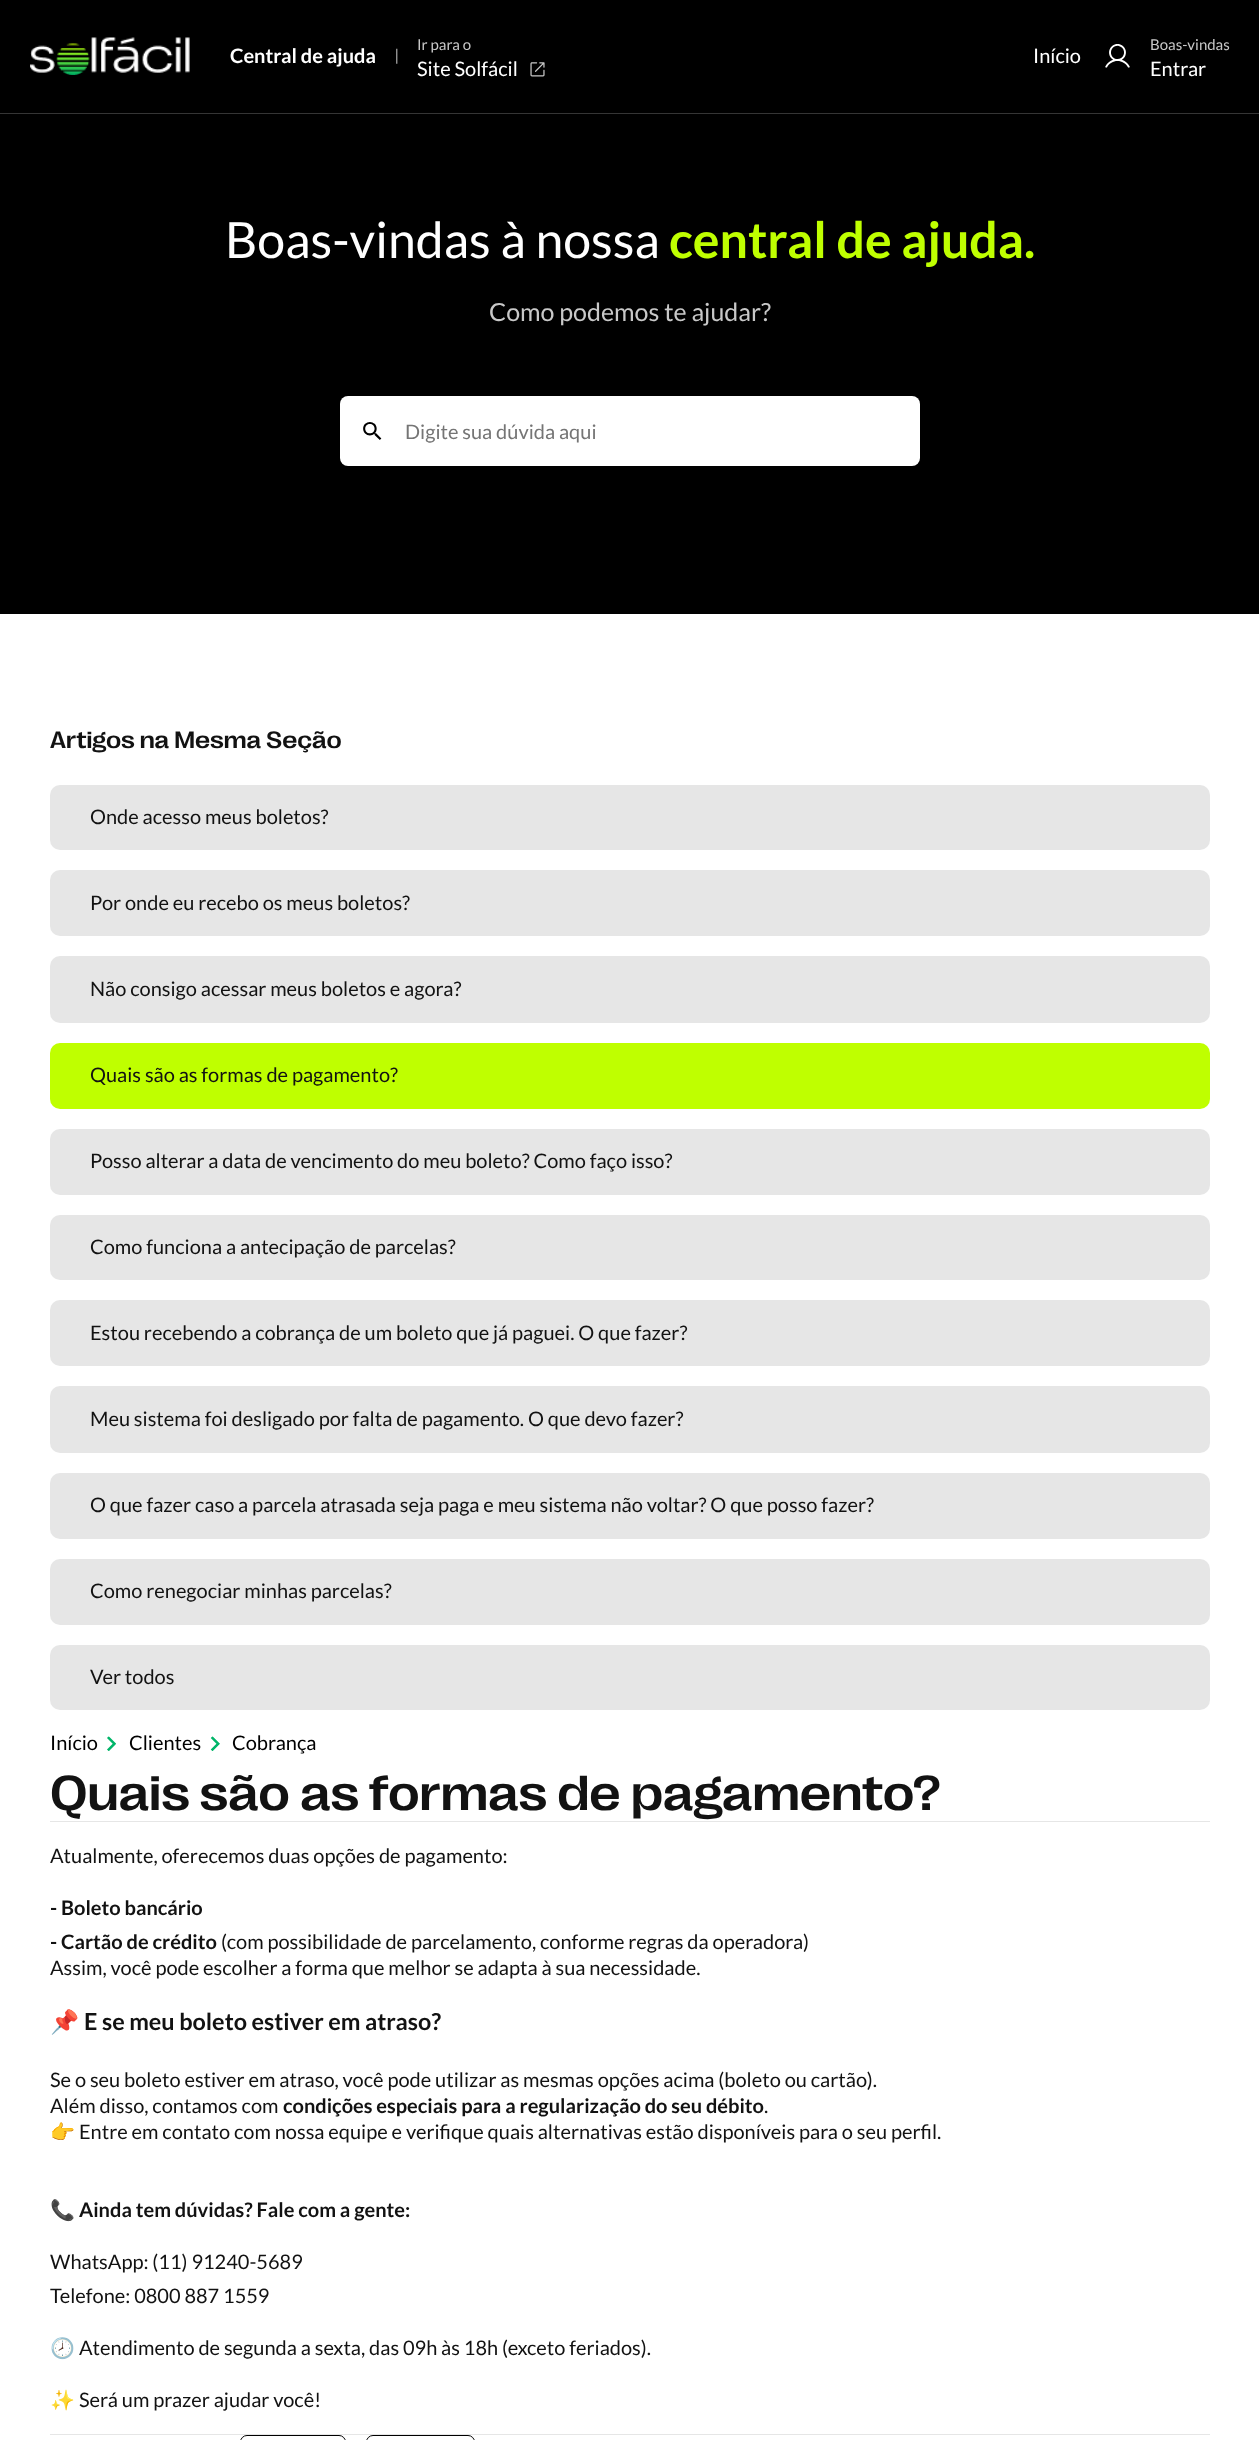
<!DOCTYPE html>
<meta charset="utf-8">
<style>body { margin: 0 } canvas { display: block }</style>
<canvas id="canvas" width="1259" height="2440"></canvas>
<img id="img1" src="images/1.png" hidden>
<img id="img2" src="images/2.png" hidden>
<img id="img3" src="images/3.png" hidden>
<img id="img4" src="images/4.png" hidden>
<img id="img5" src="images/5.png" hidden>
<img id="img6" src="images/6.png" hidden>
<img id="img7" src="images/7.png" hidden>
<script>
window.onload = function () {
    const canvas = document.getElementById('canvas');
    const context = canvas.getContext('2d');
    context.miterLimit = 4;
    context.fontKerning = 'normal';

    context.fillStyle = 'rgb(255, 255, 255)';
    context.fillRect(0, 0, 1259, 2440);
    context.fillStyle = 'rgb(0, 0, 0)';
    context.fillRect(0, 0, 1259, 113);
    context.fillStyle = 'rgb(53, 53, 53)';
    context.fillRect(0, 113, 1259, 1);
    context.drawImage(document.getElementById('img1'), 30, 37, 160, 38);
    context.drawImage(document.getElementById('img2'), 396, 48, 2, 16);
    context.drawImage(document.getElementById('img3'), 530, 62, 15, 15);
    context.drawImage(document.getElementById('img4'), 1105, 44, 25, 24);
    context.fillStyle = 'rgb(0, 0, 0)';
    context.fillRect(0, 114, 1259, 500);
    context.fillStyle = 'rgb(255, 255, 255)';
    context.beginPath();
    context.roundRect(340, 396, 580, 70, 8);
    context.fill();
    context.drawImage(document.getElementById('img5'), 363, 422, 19, 18);
    context.fillStyle = 'rgb(230, 230, 230)';
    context.beginPath();
    context.roundRect(50, 785, 1160, 65, 10);
    context.fill();
    context.beginPath();
    context.roundRect(50, 870, 1160, 66, 10);
    context.fill();
    context.beginPath();
    context.roundRect(50, 956, 1160, 67, 10);
    context.fill();
    context.fillStyle = 'rgb(191, 255, 0)';
    context.beginPath();
    context.roundRect(50, 1043, 1160, 66, 10);
    context.fill();
    context.fillStyle = 'rgb(230, 230, 230)';
    context.beginPath();
    context.roundRect(50, 1129, 1160, 66, 10);
    context.fill();
    context.beginPath();
    context.roundRect(50, 1215, 1160, 65, 10);
    context.fill();
    context.beginPath();
    context.roundRect(50, 1300, 1160, 66, 10);
    context.fill();
    context.beginPath();
    context.roundRect(50, 1386, 1160, 67, 10);
    context.fill();
    context.beginPath();
    context.roundRect(50, 1473, 1160, 66, 10);
    context.fill();
    context.beginPath();
    context.roundRect(50, 1559, 1160, 66, 10);
    context.fill();
    context.beginPath();
    context.roundRect(50, 1645, 1160, 65, 10);
    context.fill();
    context.drawImage(document.getElementById('img6'), 107, 1736, 9, 15);
    context.drawImage(document.getElementById('img7'), 210, 1736, 10, 15);
    context.fillRect(50, 1821, 1160, 1);
    context.fillRect(50, 2434, 1160, 1);
    context.beginPath();
    context.roundRect(240.5, 2435.5, 105, 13, 7.5);
    context.strokeStyle = 'rgb(0, 0, 0)';
    context.stroke();
    context.beginPath();
    context.roundRect(366.5, 2435.5, 108, 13, 7.5);
    context.stroke();
    context.font = 'bold 20px Lato';
    context.fillStyle = 'rgb(255, 255, 255)';
    context.fillText('Central de ajuda', 230, 63);
    context.font = '15px Lato';
    context.fillStyle = 'rgb(200, 200, 200)';
    context.fillText('Ir para o', 417, 50);
    context.font = '20px Lato';
    context.fillStyle = 'rgb(255, 255, 255)';
    context.fillText('Site Solfácil', 417, 76);
    context.fillText('Início', 1033, 63);
    context.font = '15px Lato';
    context.fillStyle = 'rgb(200, 200, 200)';
    context.fillText('Boas-vindas', 1150, 50);
    context.font = '20px Lato';
    context.fillStyle = 'rgb(255, 255, 255)';
    context.fillText('Entrar', 1150, 76);
    context.font = '50px Lato';
    context.fillText('Boas-vindas à nossa', 225, 258);
    context.font = 'bold 50px Lato';
    context.fillStyle = 'rgb(191, 255, 0)';
    context.fillText('central de ajuda.', 669, 258);
    context.font = '25px Lato';
    context.fillStyle = 'rgb(200, 200, 200)';
    context.fillText('Como podemos te ajudar?', 489, 321);
    context.font = '20px Lato';
    context.fillStyle = 'rgb(117, 117, 117)';
    context.fillText('Digite sua dúvida aqui', 405, 439);
    context.font = '500 24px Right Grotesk';
    context.fillStyle = 'rgb(18, 18, 18)';
    context.fillText('Artigos na Mesma Seção', 50, 748);
    context.font = '20px Lato';
    context.fillText('Onde acesso meus boletos?', 90, 824);
    context.fillText('Por onde eu recebo os meus boletos?', 90, 910);
    context.fillText('Não consigo acessar meus boletos e agora?', 90, 996);
    context.fillText('Quais são as formas de pagamento?', 90, 1082);
    context.fillText('Posso alterar a data de vencimento do meu boleto? Como faço isso?', 90, 1168);
    context.fillText('Como funciona a antecipação de parcelas?', 90, 1254);
    context.fillText('Estou recebendo a cobrança de um boleto que já paguei. O que fazer?', 90, 1340);
    context.fillText('Meu sistema foi desligado por falta de pagamento. O que devo fazer?', 90, 1426);
    context.fillText('O que fazer caso a parcela atrasada seja paga e meu sistema não voltar? O que posso fazer?', 90, 1512);
    context.fillText('Como renegociar minhas parcelas?', 90, 1598);
    context.fillText('Ver todos', 90, 1684);
    context.fillStyle = 'rgb(0, 0, 0)';
    context.fillText('Início', 50, 1750);
    context.fillText('Clientes', 129, 1750);
    context.fillText('Cobrança', 232, 1750);
    context.font = '500 50px Right Grotesk';
    context.fillStyle = 'rgb(18, 18, 18)';
    context.fillText('Quais são as formas de pagamento?', 50, 1810);
    context.font = '20px Lato';
    context.fillText('Atualmente, oferecemos duas opções de pagamento:', 50, 1863);
    context.font = 'bold 20px Lato';
    context.fillText('- Boleto bancário', 50, 1915);
    context.fillText('- Cartão de crédito', 50, 1949);
    context.font = '20px Lato';
    context.fillText('(com possibilidade de parcelamento, conforme regras da operadora)', 221, 1949);
    context.fillText('Assim, você pode escolher a forma que melhor se adapta à sua necessidade.', 50, 1975);
    context.font = 'bold 23.4px Noto Color Emoji';
    context.fillText('📌', 50, 2030);
    context.font = 'bold 23.4px Lato';
    context.fillText('E se meu boleto estiver em atraso?', 84, 2030);
    context.font = '20px Lato';
    context.fillText('Se o seu boleto estiver em atraso, você pode utilizar as mesmas opções acima (boleto ou cartão).', 50, 2087);
    context.fillText('Além disso, contamos com', 50, 2113);
    context.font = 'bold 20px Lato';
    context.fillText('condições especiais para a regularização do seu débito', 283, 2113);
    context.font = '20px Lato';
    context.fillText('.', 764, 2113);
    context.font = '20px Noto Color Emoji';
    context.fillText('👉', 50, 2139);
    context.font = '20px Lato';
    context.fillText('Entre em contato com nossa equipe e verifique quais alternativas estão disponíveis para o seu perfil.', 79, 2139);
    context.font = '20px Noto Color Emoji';
    context.fillText('📞', 50, 2217);
    context.font = 'bold 20px Lato';
    context.fillText('Ainda tem dúvidas? Fale com a gente:', 79, 2217);
    context.font = '20px Lato';
    context.fillText('WhatsApp: (11) 91240-5689', 50, 2269);
    context.fillText('Telefone: 0800 887 1559', 50, 2303);
    context.font = '20px Noto Color Emoji';
    context.fillText('🕗', 50, 2355);
    context.font = '20px Lato';
    context.fillText('Atendimento de segunda a sexta, das 09h às 18h (exceto feriados).', 79, 2355);
    context.font = '20px Noto Color Emoji';
    context.fillText('✨', 50, 2407);
    context.font = '20px Lato';
    context.fillText('Será um prazer ajudar você!', 79, 2407);
};
</script>
